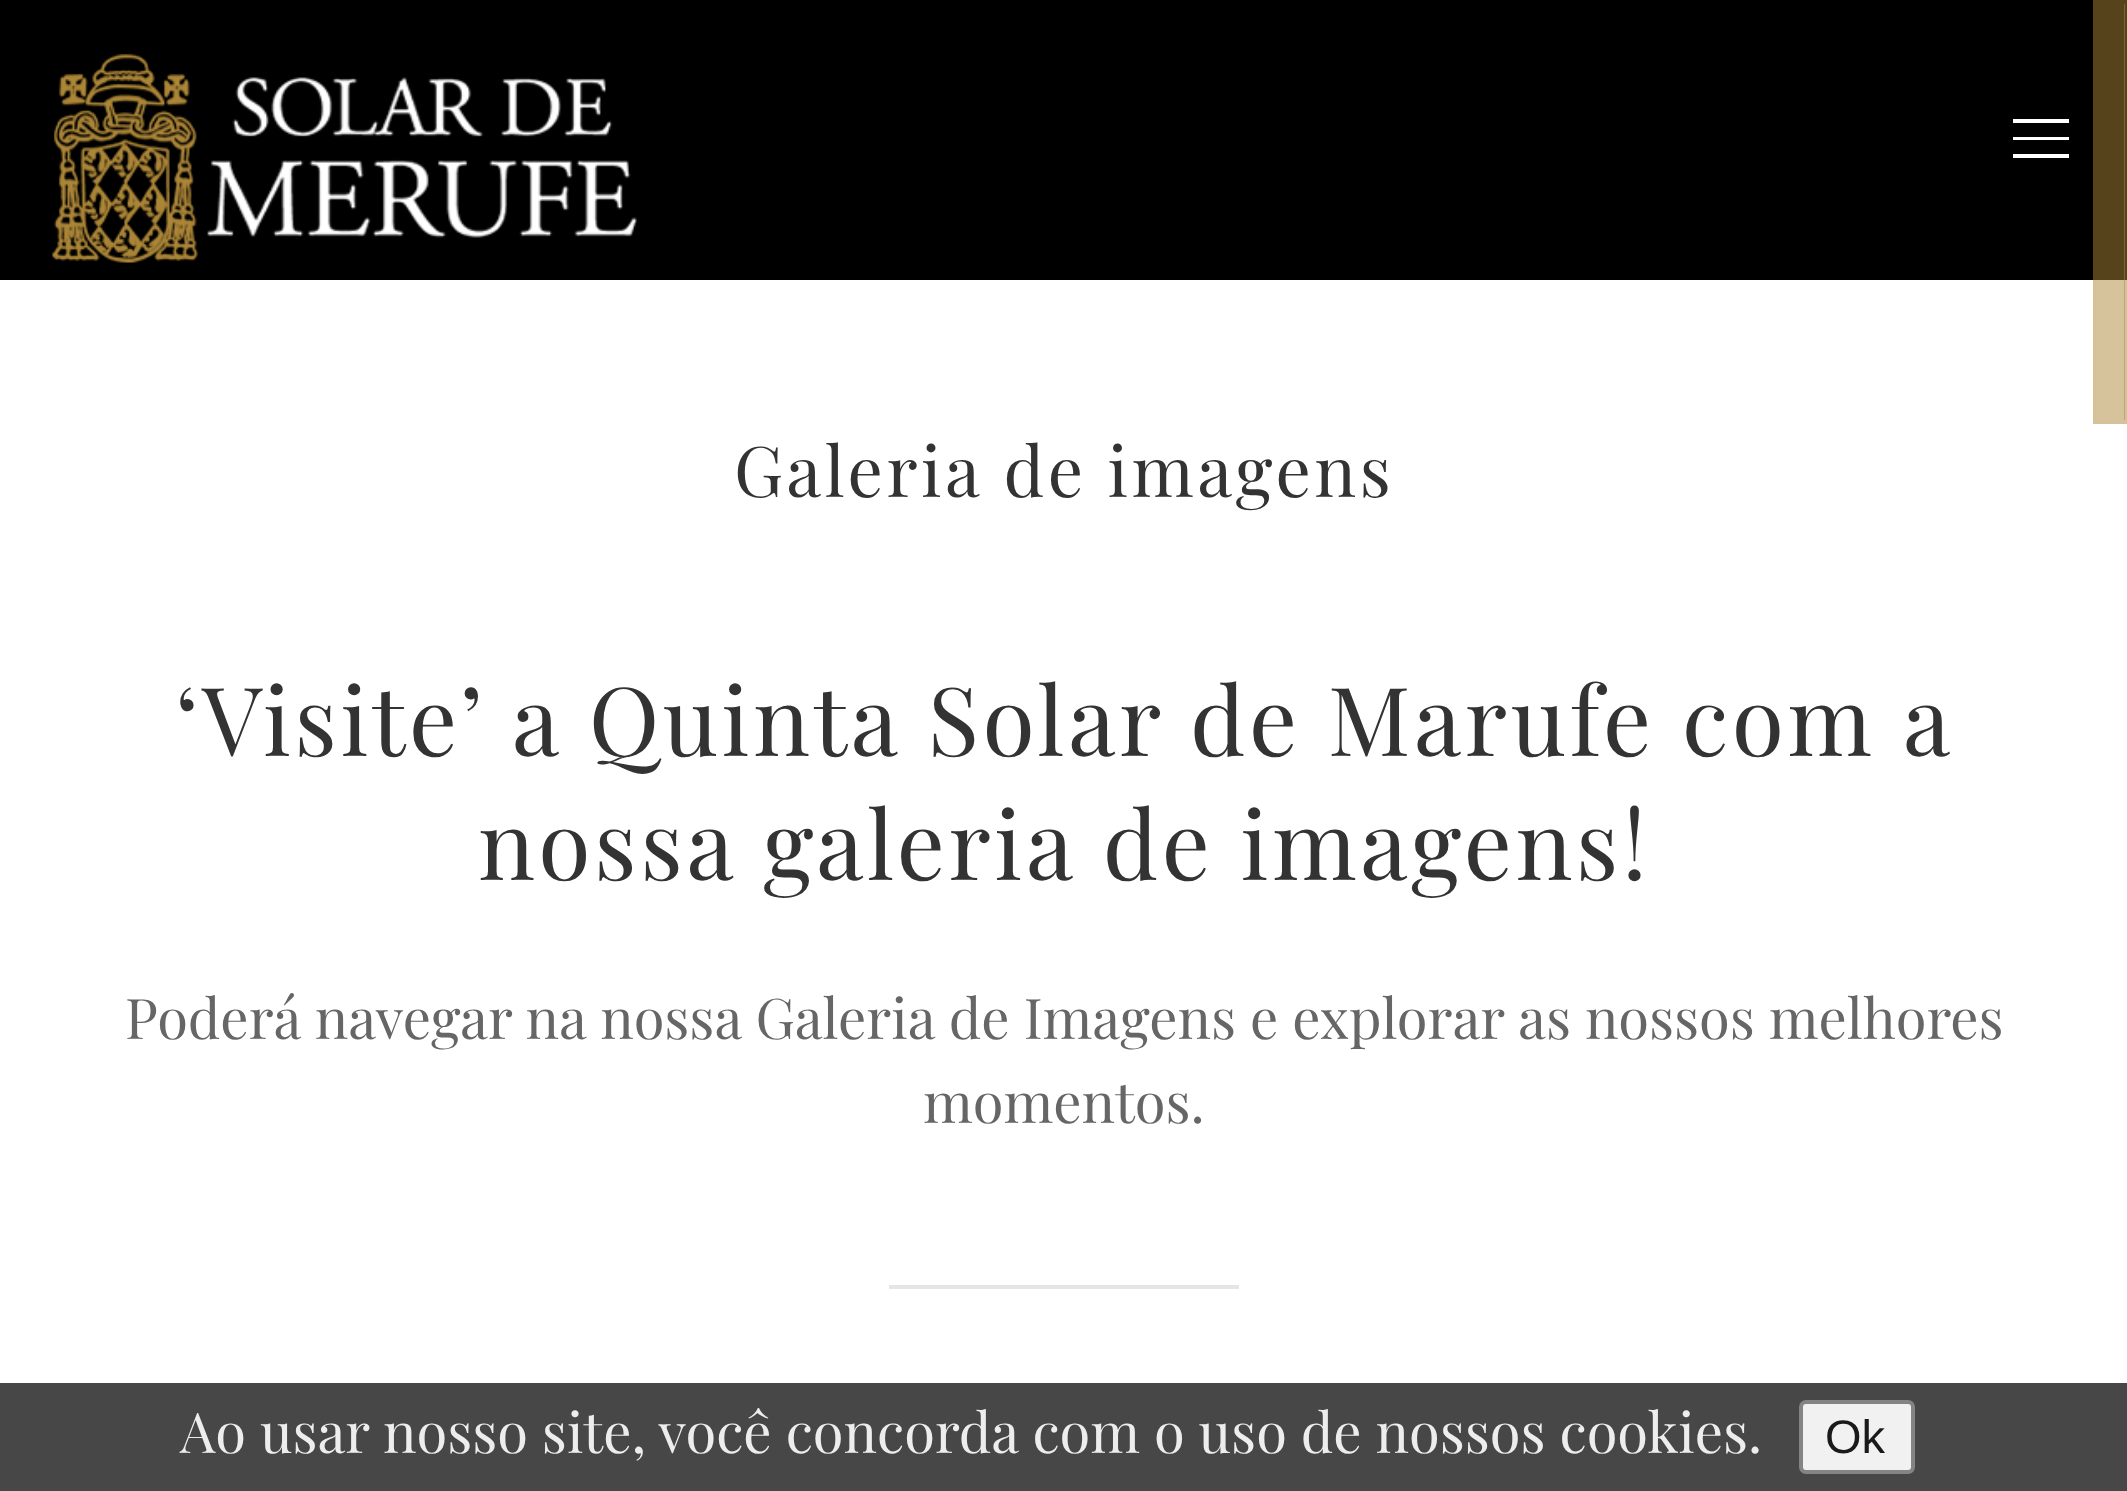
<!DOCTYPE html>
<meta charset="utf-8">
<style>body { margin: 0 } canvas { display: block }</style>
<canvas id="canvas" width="2127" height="1491"></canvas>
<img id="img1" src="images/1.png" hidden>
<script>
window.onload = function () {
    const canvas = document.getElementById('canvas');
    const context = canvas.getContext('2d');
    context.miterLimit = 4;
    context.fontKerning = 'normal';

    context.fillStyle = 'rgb(255, 255, 255)';
    context.fillRect(0, 0, 2127, 1491);
    context.fillStyle = 'rgb(71, 71, 71)';
    context.fillRect(0, 1383, 2127, 108);
    context.fillStyle = 'rgb(214, 195, 155)';
    context.fillRect(2097, 280, 28, 140);
    context.fillStyle = 'rgb(0, 0, 0)';
    context.fillRect(0, 0, 2127, 280);
    context.fillStyle = 'rgb(86, 67, 28)';
    context.fillRect(2097, 4, 28, 276);
    context.strokeStyle = 'rgba(172, 134, 55, 0.5)';
    context.lineWidth = 4;
    context.strokeRect(2095, 2, 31, 420);
    context.drawImage(document.getElementById('img1'), 52, 53, 585, 210);
    context.fillStyle = 'rgb(255, 255, 255)';
    context.fillRect(2013, 119, 56, 4);
    context.fillRect(2013, 137, 56, 3);
    context.fillRect(2013, 154, 56, 4);
    context.fillStyle = 'rgb(229, 229, 229)';
    context.fillRect(889, 1285, 350, 4);
    context.fillStyle = 'rgb(241, 241, 241)';
    context.beginPath();
    context.roundRect(1801, 1402, 112, 70, 5);
    context.fill();
    context.strokeStyle = 'rgb(132, 132, 132)';
    context.stroke();
    context.letterSpacing = '3.5px';
    context.font = '70px Playfair Display';
    context.fillStyle = 'rgb(51, 51, 51)';
    context.fillText('Galeria de imagens', 734, 497);
    context.font = '95.25px Playfair Display';
    context.fillText('‘Visite’ a Quinta Solar de Marufe com a', 175, 756);
    context.fillText('nossa galeria de imagens!', 478, 880);
    context.letterSpacing = '0px';
    context.font = '56px Playfair Display';
    context.fillStyle = 'rgb(102, 102, 102)';
    context.fillText('Poderá navegar na nossa Galeria de Imagens e explorar as nossos melhores', 125, 1039);
    context.fillText('momentos.', 923, 1123);
    context.fillStyle = 'rgb(237, 237, 237)';
    context.fillText('Ao usar nosso site, você concorda com o uso de nossos cookies.', 180, 1453);
    context.font = '47px Liberation Sans';
    context.fillStyle = 'rgb(26, 26, 26)';
    context.fillText('Ok', 1825, 1453);
};
</script>
